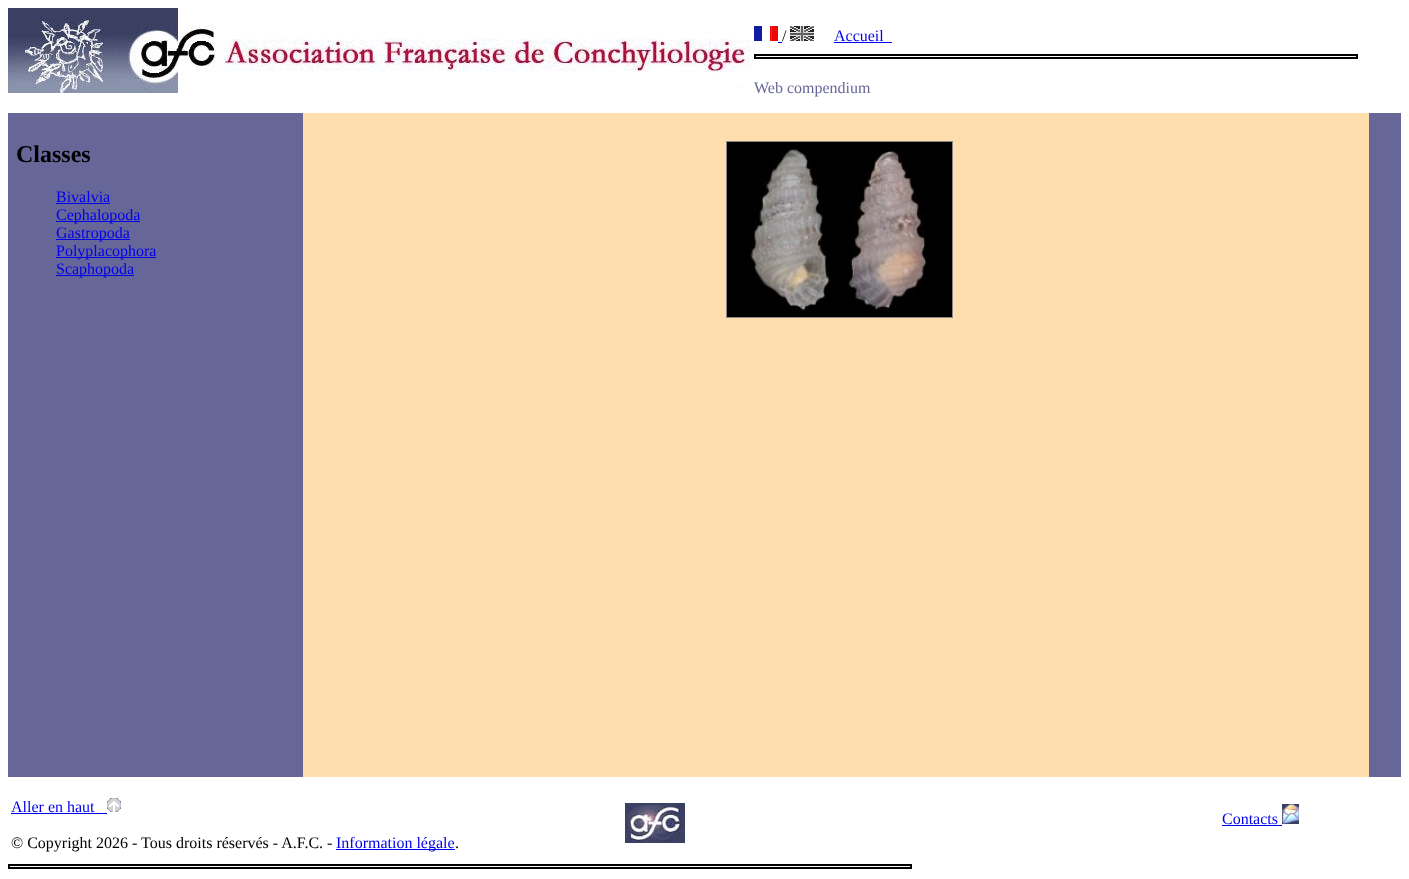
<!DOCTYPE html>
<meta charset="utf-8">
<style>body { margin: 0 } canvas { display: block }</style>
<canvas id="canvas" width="1409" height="879"></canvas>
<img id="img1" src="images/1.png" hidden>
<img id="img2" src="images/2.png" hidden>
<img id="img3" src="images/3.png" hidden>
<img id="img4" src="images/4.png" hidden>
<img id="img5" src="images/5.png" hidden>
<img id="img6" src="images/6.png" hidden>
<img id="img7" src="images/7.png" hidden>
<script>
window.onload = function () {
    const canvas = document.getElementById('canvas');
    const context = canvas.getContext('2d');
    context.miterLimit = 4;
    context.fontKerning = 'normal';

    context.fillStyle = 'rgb(255, 255, 255)';
    context.fillRect(0, 0, 1409, 879);
    context.drawImage(document.getElementById('img1'), 8, 8, 744, 85);
    context.drawImage(document.getElementById('img2'), 754, 26, 24, 15);
    context.drawImage(document.getElementById('img3'), 790, 26, 24, 15);
    context.fillStyle = 'rgb(0, 0, 238)';
    context.fillRect(834, 42, 58, 1);
    context.fillRect(778, 42, 4, 1);
    context.strokeStyle = 'rgb(0, 0, 0)';
    context.lineWidth = 2;
    context.strokeRect(755, 55, 602, 3);
    context.fillStyle = 'rgb(102, 102, 153)';
    context.fillRect(8, 113, 1393, 664);
    context.fillStyle = 'rgb(0, 0, 238)';
    context.fillRect(56, 203, 54, 1);
    context.fillRect(56, 221, 84, 1);
    context.fillRect(56, 239, 74, 1);
    context.fillRect(56, 257, 100, 1);
    context.fillRect(56, 275, 78, 1);
    context.fillStyle = 'rgb(255, 222, 173)';
    context.fillRect(303, 113, 1066, 664);
    context.strokeStyle = 'rgb(136, 136, 136)';
    context.lineWidth = 1;
    context.strokeRect(726.5, 141.5, 226, 176);
    context.fillStyle = 'rgb(0, 0, 0)';
    context.fillRect(727, 142, 225, 175);
    context.drawImage(document.getElementById('img4'), 745, 148, 182, 164);
    context.fillStyle = 'rgb(0, 0, 238)';
    context.fillRect(11, 813, 96, 1);
    context.drawImage(document.getElementById('img5'), 107, 798, 14, 14);
    context.fillRect(336, 849, 119, 1);
    context.drawImage(document.getElementById('img6'), 625, 803, 60, 40);
    context.fillRect(1222, 825, 60, 1);
    context.drawImage(document.getElementById('img7'), 1282, 804, 17, 20);
    context.strokeStyle = 'rgb(0, 0, 0)';
    context.lineWidth = 2;
    context.strokeRect(9, 865, 902, 3);
    context.font = '16px Liberation Serif';
    context.fillStyle = 'rgb(0, 0, 0)';
    context.fillText('/', 782, 41);
    context.fillStyle = 'rgb(0, 0, 238)';
    context.fillText('Accueil', 834, 41);
    context.fillStyle = 'rgb(102, 102, 153)';
    context.fillText('Web compendium', 754, 93);
    context.font = 'bold 24px Liberation Serif';
    context.fillStyle = 'rgb(0, 0, 0)';
    context.fillText('Classes', 16, 162);
    context.font = '16px Liberation Serif';
    context.fillStyle = 'rgb(0, 0, 238)';
    context.fillText('Bivalvia', 56, 202);
    context.fillText('Cephalopoda', 56, 220);
    context.fillText('Gastropoda', 56, 238);
    context.fillText('Polyplacophora', 56, 256);
    context.fillText('Scaphopoda', 56, 274);
    context.fillText('Aller en haut', 11, 812);
    context.fillStyle = 'rgb(0, 0, 0)';
    context.fillText('© Copyright 2026 - Tous droits réservés - A.F.C. -', 11, 848);
    context.fillStyle = 'rgb(0, 0, 238)';
    context.fillText('Information légale', 336, 848);
    context.fillStyle = 'rgb(0, 0, 0)';
    context.fillText('.', 455, 848);
    context.fillStyle = 'rgb(0, 0, 238)';
    context.fillText('Contacts', 1222, 824);
};
</script>
